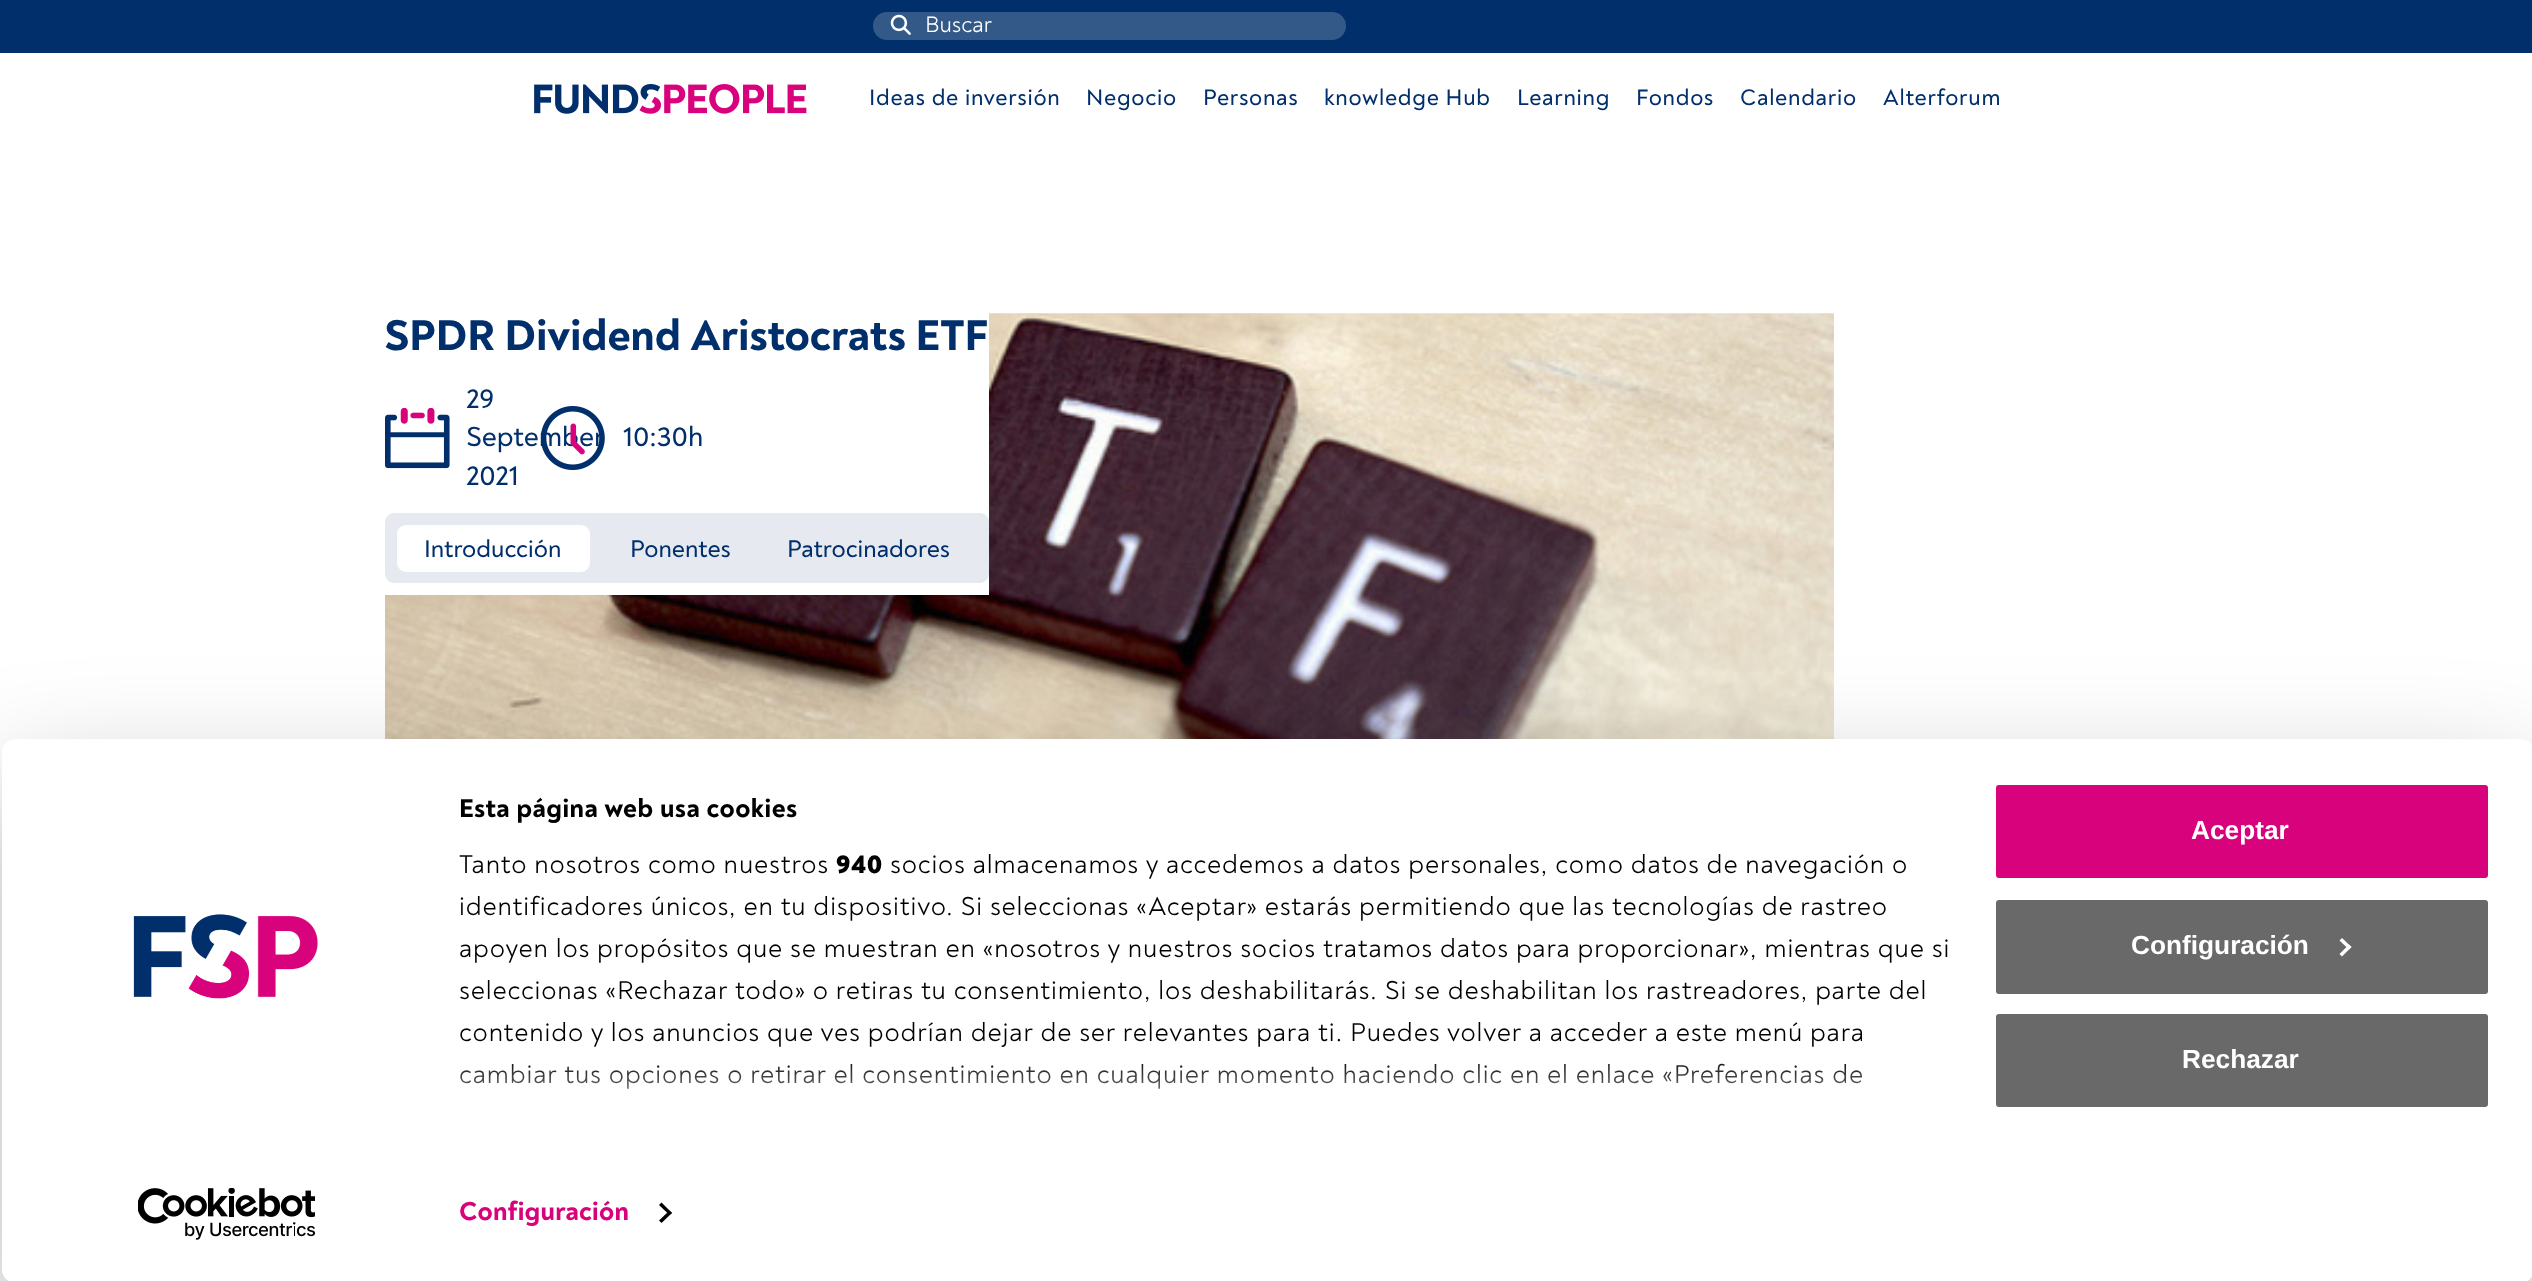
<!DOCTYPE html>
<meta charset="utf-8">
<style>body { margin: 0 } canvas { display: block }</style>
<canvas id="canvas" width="2532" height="1281"></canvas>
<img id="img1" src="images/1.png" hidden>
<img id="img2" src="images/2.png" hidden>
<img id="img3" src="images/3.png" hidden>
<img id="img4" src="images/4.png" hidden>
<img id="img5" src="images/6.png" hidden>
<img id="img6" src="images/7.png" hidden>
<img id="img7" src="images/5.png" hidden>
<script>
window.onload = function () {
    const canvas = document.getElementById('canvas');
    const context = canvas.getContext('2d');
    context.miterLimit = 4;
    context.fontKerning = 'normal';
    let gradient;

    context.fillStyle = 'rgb(255, 255, 255)';
    context.fillRect(0, 0, 2532, 1281);
    context.fillStyle = 'rgb(0, 47, 108)';
    context.fillRect(0, 0, 2532, 53);
    context.fillStyle = 'rgb(51, 89, 137)';
    context.beginPath();
    context.roundRect(873, 12, 473, 28, 14);
    context.fill();
    context.drawImage(document.getElementById('img1'), 890, 14, 21, 21);
    context.drawImage(document.getElementById('img2'), 534, 84, 273, 30);
    context.drawImage(document.getElementById('img3'), 385, 313, 1449, 426);
    context.fillStyle = 'rgb(255, 255, 255)';
    context.fillRect(385, 313, 604, 282);
    context.drawImage(document.getElementById('img4'), 385, 408, 65, 61);
    context.fillStyle = 'rgb(230, 234, 240)';
    context.beginPath();
    context.roundRect(385, 513, 604, 70, 9);
    context.fill();
    context.fillStyle = 'rgb(255, 255, 255)';
    context.beginPath();
    context.roundRect(397, 525, 193, 47, 9);
    context.fill();
    context.save();
    context.beginPath();
    context.moveTo(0, 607);
    context.lineTo(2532, 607);
    context.lineTo(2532, 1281);
    context.lineTo(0, 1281);
    context.closePath();
    context.moveTo(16, 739);
    context.lineTo(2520, 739);
    context.bezierCurveTo(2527.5, 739, 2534, 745.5, 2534, 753);
    context.lineTo(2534, 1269);
    context.bezierCurveTo(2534, 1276.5, 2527.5, 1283, 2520, 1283);
    context.lineTo(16, 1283);
    context.bezierCurveTo(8.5, 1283, 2, 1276.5, 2, 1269);
    context.lineTo(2, 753);
    context.bezierCurveTo(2, 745.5, 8.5, 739, 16, 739);
    context.closePath();
    context.clip('evenodd');
    context.fillStyle = 'rgba(0, 0, 0, 0.3)';
    context.filter = 'blur(61px)';
    context.beginPath();
    context.roundRect(2, 791, 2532, 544, 14);
    context.fill();
    context.filter = 'none';
    context.restore();
    context.beginPath();
    context.roundRect(2, 739, 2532, 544, 14);
    context.fill();
    context.drawImage(document.getElementById('img5'), 133, 914, 185, 85);
    context.drawImage(document.getElementById('img6'), 138, 1188, 177, 52);
    context.fillStyle = 'rgb(0, 0, 0)';
    context.beginPath();
    context.moveTo(661.5, 1202.5);
    context.lineTo(672, 1213);
    context.lineTo(669.5, 1215);
    context.lineTo(659, 1205);
    context.closePath();
    context.fill();
    context.beginPath();
    context.moveTo(669.5, 1210.5);
    context.lineTo(672, 1213);
    context.lineTo(661.5, 1223);
    context.lineTo(659, 1220.5);
    context.closePath();
    context.fill();
    context.fillStyle = 'rgb(217, 2, 125)';
    context.beginPath();
    context.roundRect(1994, 783, 496, 97, 5);
    context.fill();
    context.strokeStyle = 'rgb(255, 255, 255)';
    context.lineWidth = 4;
    context.stroke();
    context.fillStyle = 'rgb(105, 105, 105)';
    context.beginPath();
    context.roundRect(1994, 898, 496, 98, 5);
    context.fill();
    context.stroke();
    context.fillStyle = 'rgb(255, 255, 255)';
    context.beginPath();
    context.moveTo(2342, 938);
    context.lineTo(2351.5, 947);
    context.lineTo(2349, 949.5);
    context.lineTo(2339.5, 940.5);
    context.closePath();
    context.fill();
    context.beginPath();
    context.moveTo(2349, 944.5);
    context.lineTo(2351.5, 947);
    context.lineTo(2342, 956.5);
    context.lineTo(2339.5, 954);
    context.closePath();
    context.fill();
    context.fillStyle = 'rgb(105, 105, 105)';
    context.beginPath();
    context.roundRect(1994, 1012, 496, 97, 5);
    context.fill();
    context.stroke();
    context.font = '22.75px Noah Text';
    context.fillStyle = 'rgb(255, 255, 255)';
    context.fillText('Buscar', 925, 32);
    context.letterSpacing = '0.7px';
    context.font = '500 22.75px Noah Text';
    context.fillStyle = 'rgb(0, 47, 108)';
    context.fillText('Ideas de inversión', 869, 105);
    context.fillText('Negocio', 1086, 105);
    context.fillText('Personas', 1203, 105);
    context.fillText('knowledge Hub', 1324, 105);
    context.fillText('Learning', 1517, 105);
    context.fillText('Fondos', 1636, 105);
    context.fillText('Calendario', 1740, 105);
    context.fillText('Alterforum', 1883, 105);
    context.letterSpacing = '0px';
    context.font = '800 43.75px Noah Text';
    context.fillText('SPDR Dividend Aristocrats ETF', 384, 350);
    context.font = '500 28px Noah Text';
    context.fillText('29', 466, 408);
    context.fillText('September', 466, 446);
    context.fillText('2021', 466, 485);
    context.drawImage(document.getElementById('img7'), 541, 406, 64, 65);
    context.fillText('10:30h', 623, 446);
    context.font = '500 24.5px Noah Text';
    context.fillText('Introducción', 424, 557);
    context.fillText('Ponentes', 630, 557);
    context.fillText('Patrocinadores', 787, 557);
    context.letterSpacing = '0.45px';
    context.font = '800 26.25px Noah Text';
    context.fillStyle = 'rgb(0, 0, 0)';
    context.fillText('Esta página web usa cookies', 459, 817);
    context.letterSpacing = '0.88px';
    context.font = '26.25px Noah Text';
    context.fillText('Tanto nosotros como nuestros', 459, 873);
    context.font = '900 26.25px Noah Text';
    context.fillText('940', 836, 873);
    context.font = '26.25px Noah Text';
    context.fillText('socios almacenamos y accedemos a datos personales, como datos de navegación o', 890, 873);
    context.fillText('identificadores únicos, en tu dispositivo. Si seleccionas «Aceptar» estarás permitiendo que las tecnologías de rastreo', 459, 915);
    context.fillText('apoyen los propósitos que se muestran en «nosotros y nuestros socios tratamos datos para proporcionar», mientras que si', 459, 957);
    context.fillText('seleccionas «Rechazar todo» o retiras tu consentimiento, los deshabilitarás. Si se deshabilitan los rastreadores, parte del', 459, 999);
    context.fillText('contenido y los anuncios que ves podrían dejar de ser relevantes para ti. Puedes volver a acceder a este menú para', 459, 1041);
    context.fillText('cambiar tus opciones o retirar el consentimiento en cualquier momento haciendo clic en el enlace «Preferencias de', 459, 1083);
    gradient = context.createLinearGradient(1201, 1187, 1201, 1056);
    gradient.addColorStop(0, 'rgb(255, 255, 255)');
    gradient.addColorStop(0.5, 'rgba(255, 255, 255, 0.8)');
    gradient.addColorStop(1, 'rgba(255, 255, 255, 0)');
    context.fillStyle = gradient;
    context.fillRect(460, 1063, 1402, 26);
    context.letterSpacing = '0.25px';
    context.font = '800 26.25px Noah Text';
    context.fillStyle = 'rgb(217, 2, 125)';
    context.fillText('Configuración', 459, 1220);
    context.letterSpacing = '0px';
    context.font = 'bold 26.25px Liberation Sans';
    context.fillStyle = 'rgb(255, 255, 255)';
    context.fillText('Aceptar', 2191, 839);
    context.fillText('Configuración', 2131, 954);
    context.fillText('Rechazar', 2182, 1068);
};
</script>
